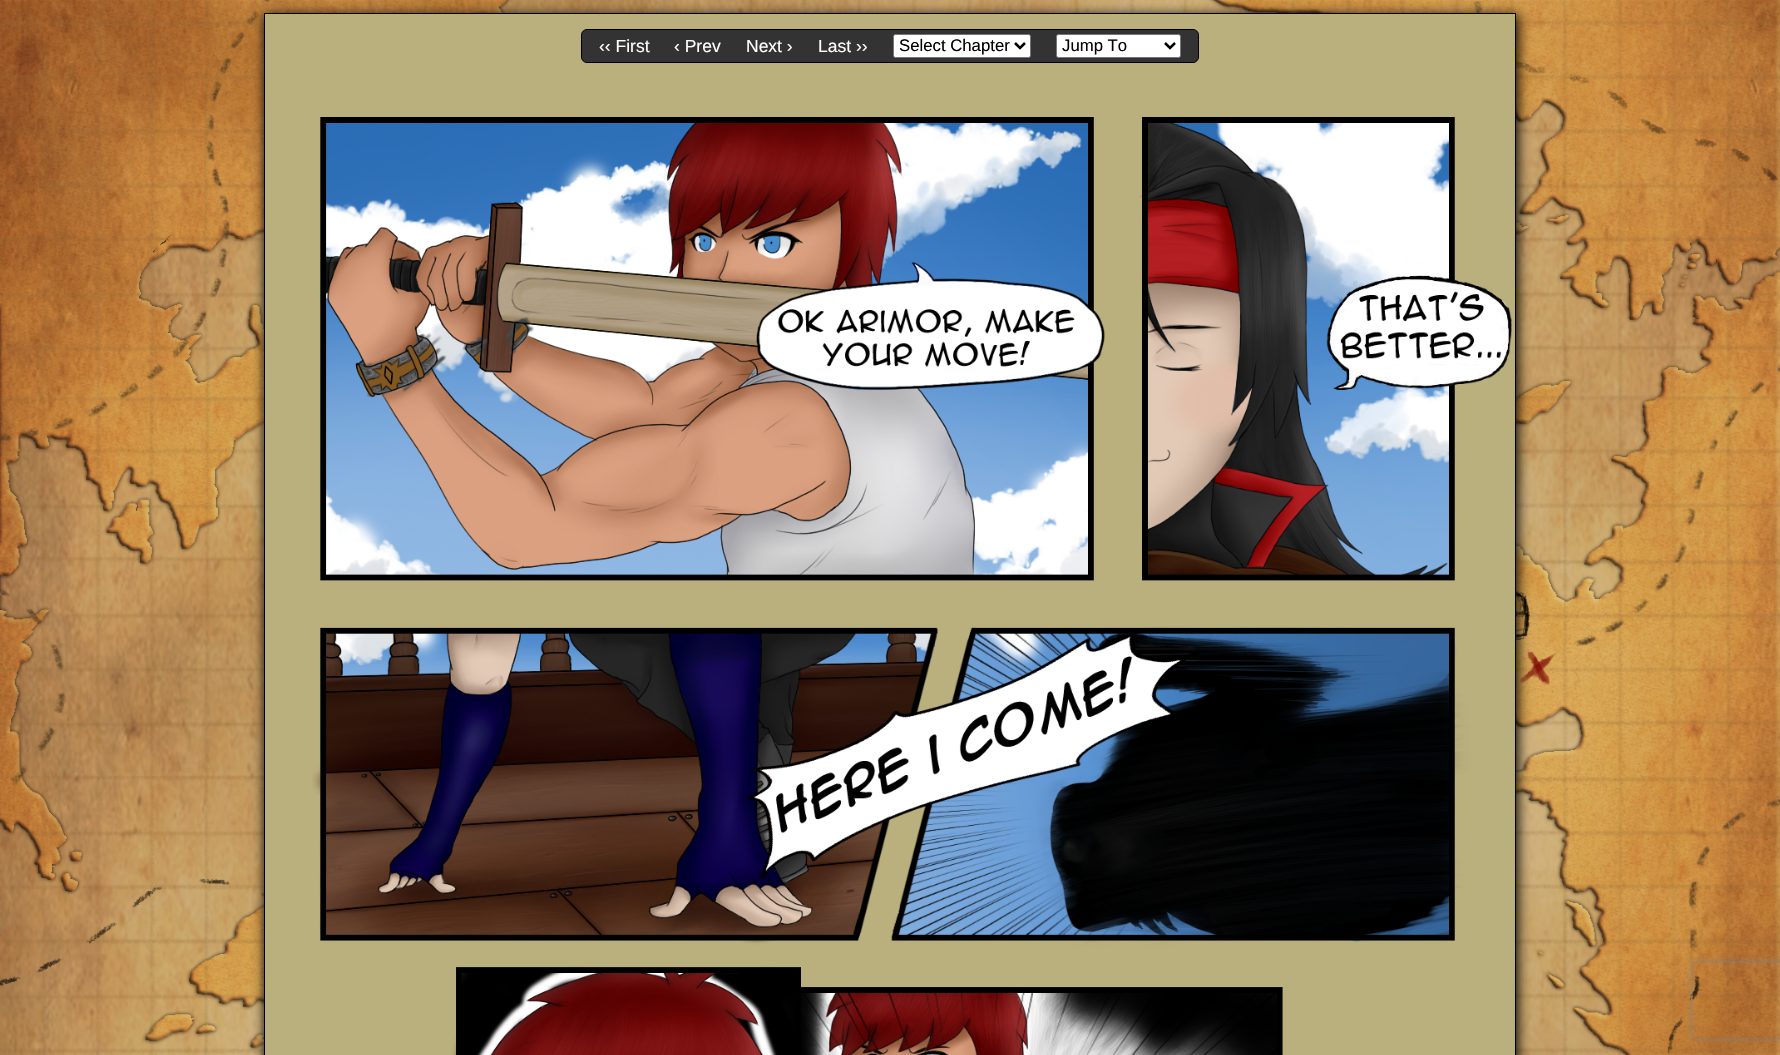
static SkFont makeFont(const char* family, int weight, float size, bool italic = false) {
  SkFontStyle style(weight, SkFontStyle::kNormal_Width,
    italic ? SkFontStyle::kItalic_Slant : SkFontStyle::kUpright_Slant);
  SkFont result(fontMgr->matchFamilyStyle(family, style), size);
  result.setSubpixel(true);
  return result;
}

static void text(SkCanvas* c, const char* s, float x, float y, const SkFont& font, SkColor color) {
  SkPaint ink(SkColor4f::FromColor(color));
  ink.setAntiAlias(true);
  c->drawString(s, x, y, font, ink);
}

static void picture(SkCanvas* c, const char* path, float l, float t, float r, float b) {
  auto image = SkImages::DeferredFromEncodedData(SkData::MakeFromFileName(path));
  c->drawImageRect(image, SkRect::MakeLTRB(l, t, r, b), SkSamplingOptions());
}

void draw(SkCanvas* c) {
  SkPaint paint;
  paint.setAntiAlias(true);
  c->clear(0xffffffff);
  picture(c, "img_01.png", 0, 0, 1780, 1055);
  paint.setColor(0xff000000);
  paint.setMaskFilter(SkMaskFilter::MakeBlur(kNormal_SkBlurStyle, 6));
  c->drawRect(SkRect::MakeLTRB(265, 15, 1518, 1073), paint);
  paint.setMaskFilter(nullptr);
  paint.setColor(0xffbab07e);
  c->drawRect(SkRect::MakeLTRB(264.5f, 13.5f, 1515.5f, 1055.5f), paint);
  paint.setStyle(SkPaint::kStroke_Style);
  paint.setStrokeWidth(1);
  paint.setColor(0xff000000);
  c->drawRect(SkRect::MakeLTRB(264.5f, 13.5f, 1515.5f, 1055.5f), paint);
  paint.setStyle(SkPaint::kFill_Style);
  paint.setColor(0xff333333);
  c->drawRoundRect(SkRect::MakeLTRB(581.5f, 29.5f, 1198.5f, 62.5f), 5.5f, 5.5f, paint);
  paint.setStyle(SkPaint::kStroke_Style);
  paint.setColor(0xff000000);
  c->drawRoundRect(SkRect::MakeLTRB(581.5f, 29.5f, 1198.5f, 62.5f), 5.5f, 5.5f, paint);
  SkFont face1 = makeFont("Liberation Sans", 400, 17.5f);
  text(c, "‹‹ First", 599, 52, face1, 0xffffffff);
  text(c, "‹ Prev", 674, 52, face1, 0xffffffff);
  text(c, "Next ›", 746, 52, face1, 0xffffffff);
  text(c, "Last ››", 818, 52, face1, 0xffffffff);
  paint.setStyle(SkPaint::kFill_Style);
  paint.setColor(0xffffffff);
  c->drawRoundRect(SkRect::MakeLTRB(893.5f, 34.5f, 1030.5f, 57.5f), 2, 2, paint);
  paint.setStyle(SkPaint::kStroke_Style);
  paint.setColor(0xff767676);
  c->drawRoundRect(SkRect::MakeLTRB(893.5f, 34.5f, 1030.5f, 57.5f), 2, 2, paint);
  paint.setStrokeWidth(2.5f);
  paint.setColor(0xff000000);
  c->drawPath(SkPathBuilder().moveTo(1015, 43).lineTo(1020, 48).lineTo(1025, 43).detach(), paint);
  SkFont face2 = makeFont("Liberation Sans", 400, 16.75f);
  text(c, "Select Chapter", 899, 51, face2, 0xff000000);
  paint.setStyle(SkPaint::kFill_Style);
  paint.setColor(0xffffffff);
  c->drawRoundRect(SkRect::MakeLTRB(1056.5f, 34.5f, 1180.5f, 57.5f), 2, 2, paint);
  paint.setStyle(SkPaint::kStroke_Style);
  paint.setStrokeWidth(1);
  paint.setColor(0xff767676);
  c->drawRoundRect(SkRect::MakeLTRB(1056.5f, 34.5f, 1180.5f, 57.5f), 2, 2, paint);
  paint.setStrokeWidth(2.5f);
  paint.setColor(0xff000000);
  c->drawPath(SkPathBuilder().moveTo(1165, 43).lineTo(1170, 48).lineTo(1175, 43).detach(), paint);
  text(c, "Jump To", 1062, 51, face2, 0xff000000);
  picture(c, "img_02.png", 312, 117, 1512, 1055);
  c->save();
  c->clipPath(SkPathBuilder(SkPathFillType::kEvenOdd).moveTo(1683, 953).lineTo(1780, 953).lineTo(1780, 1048).lineTo(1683, 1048).close().moveTo(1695.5f, 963).lineTo(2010.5f, 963).cubicTo(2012, 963, 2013, 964, 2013, 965.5f).lineTo(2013, 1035.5f).cubicTo(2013, 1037, 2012, 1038, 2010.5f, 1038).lineTo(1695.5f, 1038).cubicTo(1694, 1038, 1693, 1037, 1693, 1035.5f).lineTo(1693, 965.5f).cubicTo(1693, 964, 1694, 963, 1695.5f, 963).close().detach(), true);
  paint.setStyle(SkPaint::kFill_Style);
  paint.setColor(0xff808080);
  paint.setMaskFilter(SkMaskFilter::MakeBlur(kNormal_SkBlurStyle, 3));
  c->drawRoundRect(SkRect::MakeLTRB(1693, 963, 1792, 1038), 2.5f, 2.5f, paint);
  paint.setMaskFilter(nullptr);
  c->restore();
}
